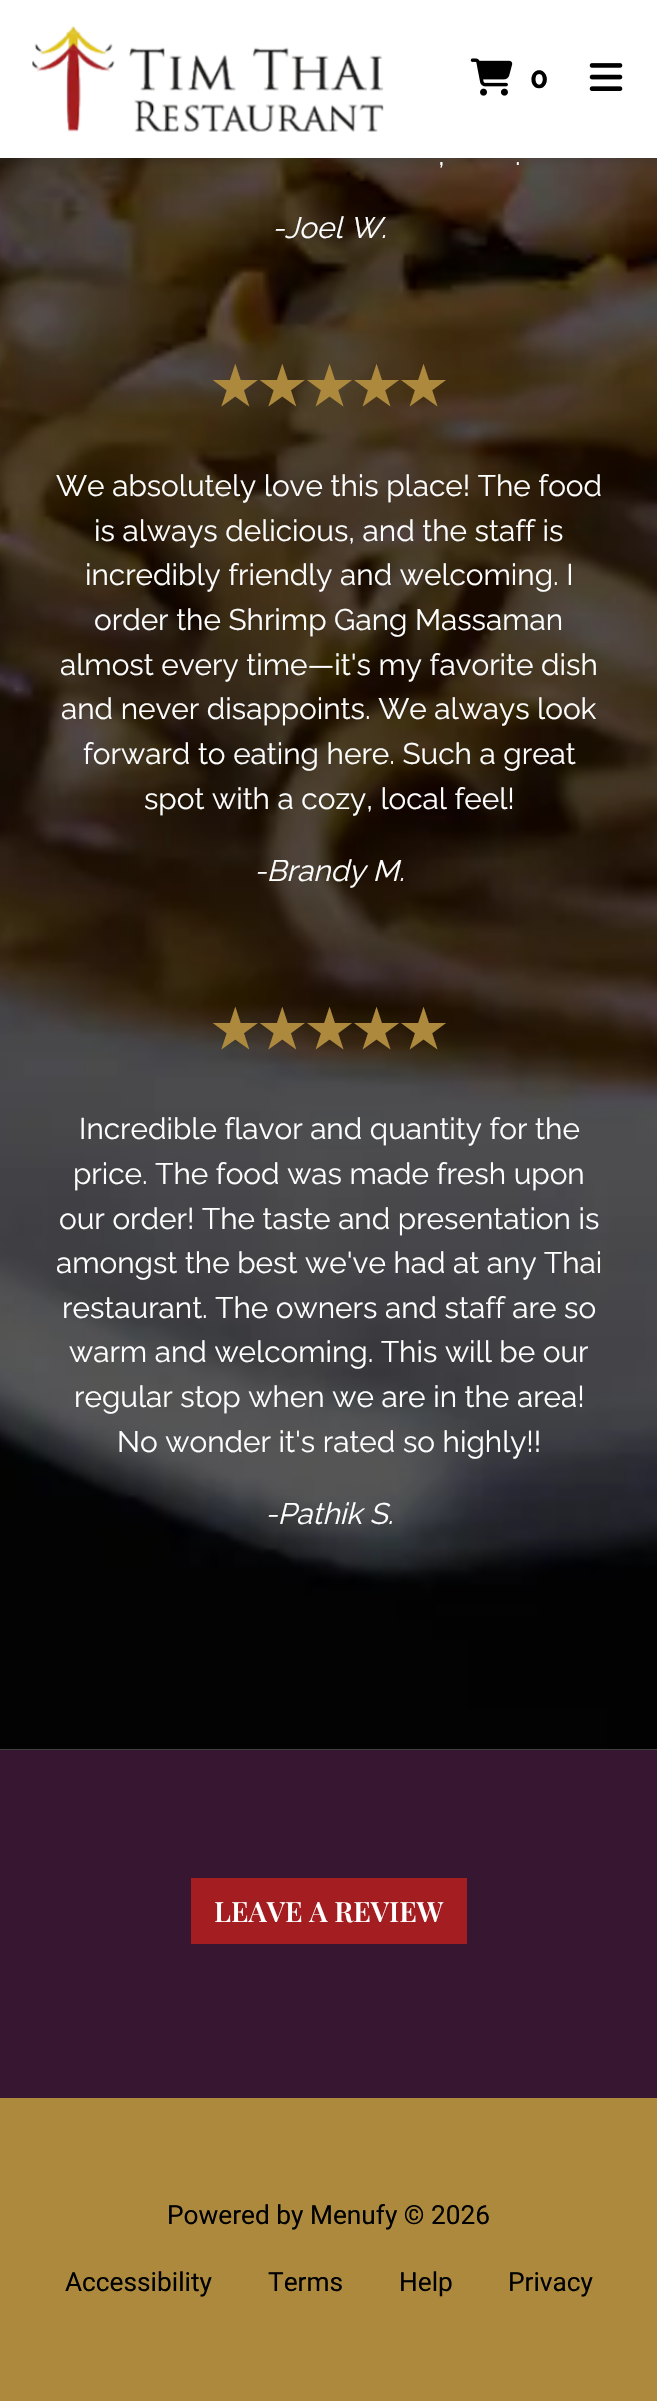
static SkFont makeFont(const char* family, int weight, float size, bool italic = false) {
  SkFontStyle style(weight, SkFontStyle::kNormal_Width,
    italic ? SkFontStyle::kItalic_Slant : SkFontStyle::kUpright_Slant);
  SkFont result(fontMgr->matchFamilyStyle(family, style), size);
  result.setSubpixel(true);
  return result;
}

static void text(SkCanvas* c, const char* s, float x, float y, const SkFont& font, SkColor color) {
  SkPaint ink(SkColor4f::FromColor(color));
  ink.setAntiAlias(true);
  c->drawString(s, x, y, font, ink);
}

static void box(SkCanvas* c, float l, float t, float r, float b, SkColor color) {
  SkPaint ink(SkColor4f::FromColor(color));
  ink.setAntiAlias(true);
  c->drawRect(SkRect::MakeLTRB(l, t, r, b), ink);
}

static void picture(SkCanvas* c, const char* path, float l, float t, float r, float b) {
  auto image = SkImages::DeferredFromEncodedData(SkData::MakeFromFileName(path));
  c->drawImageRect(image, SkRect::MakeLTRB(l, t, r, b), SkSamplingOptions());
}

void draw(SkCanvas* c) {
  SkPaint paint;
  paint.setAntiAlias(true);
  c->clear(0xffffffff);
  picture(c, "img_04.png", 0, 158, 657, 1750);
  paint.setColor(0x47202124);
  paint.setMaskFilter(SkMaskFilter::MakeBlur(kNormal_SkBlurStyle, 5));
  c->drawRect(SkRect::MakeLTRB(0, 2, 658, 159), paint);
  paint.setMaskFilter(nullptr);
  box(c, 0, 0, 657, 158, 0xffffffff);
  picture(c, "img_01.png", 32, 26, 384, 132);
  picture(c, "img_02.png", 470, 58, 513, 96);
  SkFont face1 = makeFont("Raleway", 700, 29.75f);
  text(c, "0", 530, 88, face1, 0xff000000);
  picture(c, "img_03.png", 589, 63, 623, 91);
  SkFont face2 = makeFont("Raleway", 400, 29.75f);
  text(c, ",", 438, 165, face2, 0xffffffff);
  text(c, ".", 515, 165, face2, 0xffffffff);
  SkFont face3 = makeFont("Raleway", 400, 29.75f, true);
  text(c, "-Joel W.", 272, 238, face3, 0xffffffff);
  SkFont face4 = makeFont("DejaVu Sans", 700, 52.5f);
  text(c, "★★★★★", 211, 405, face4, 0xffad893e);
  text(c, "We absolutely love this place! The food", 56, 496, face2, 0xffffffff);
  text(c, "is always delicious, and the staff is", 94, 541, face2, 0xffffffff);
  text(c, "incredibly friendly and welcoming. I", 85, 585, face2, 0xffffffff);
  text(c, "order the Shrimp Gang Massaman", 94, 630, face2, 0xffffffff);
  text(c, "almost every time—it's my favorite dish", 60, 675, face2, 0xffffffff);
  text(c, "and never disappoints. We always look", 61, 719, face2, 0xffffffff);
  text(c, "forward to eating here. Such a great", 83, 764, face2, 0xffffffff);
  text(c, "spot with a cozy, local feel!", 144, 809, face2, 0xffffffff);
  text(c, "-Brandy M.", 254, 881, face3, 0xffffffff);
  text(c, "★★★★★", 211, 1048, face4, 0xffad893e);
  text(c, "Incredible flavor and quantity for the", 79, 1139, face2, 0xffffffff);
  text(c, "price. The food was made fresh upon", 73, 1184, face2, 0xffffffff);
  text(c, "our order! The taste and presentation is", 59, 1229, face2, 0xffffffff);
  text(c, "amongst the best we've had at any Thai", 56, 1273, face2, 0xffffffff);
  text(c, "restaurant. The owners and staff are so", 62, 1318, face2, 0xffffffff);
  text(c, "warm and welcoming. This will be our", 69, 1362, face2, 0xffffffff);
  text(c, "regular stop when we are in the area!", 74, 1407, face2, 0xffffffff);
  text(c, "No wonder it's rated so highly!!", 117, 1452, face2, 0xffffffff);
  text(c, "-Pathik S.", 265, 1524, face3, 0xffffffff);
  box(c, 0, 1750, 657, 2098, 0xff371631);
  box(c, 191, 1878, 467, 1944, 0xffa41d21);
  SkFont face5 = makeFont("Playfair Display", 600, 28);
  text(c, "LEAVE A REVIEW", 214, 1922, face5, 0xffffffff);
  box(c, 0, 2098, 657, 2401, 0xffad893e);
  SkFont face6 = makeFont("Roboto", 400, 26.25f);
  text(c, "Powered by Menufy © 2026", 167, 2224, face6, 0xff000000);
  text(c, "Accessibility", 65, 2291, face6, 0xff000000);
  text(c, "Terms", 268, 2291, face6, 0xff000000);
  text(c, "Help", 399, 2291, face6, 0xff000000);
  text(c, "Privacy", 508, 2291, face6, 0xff000000);
}
